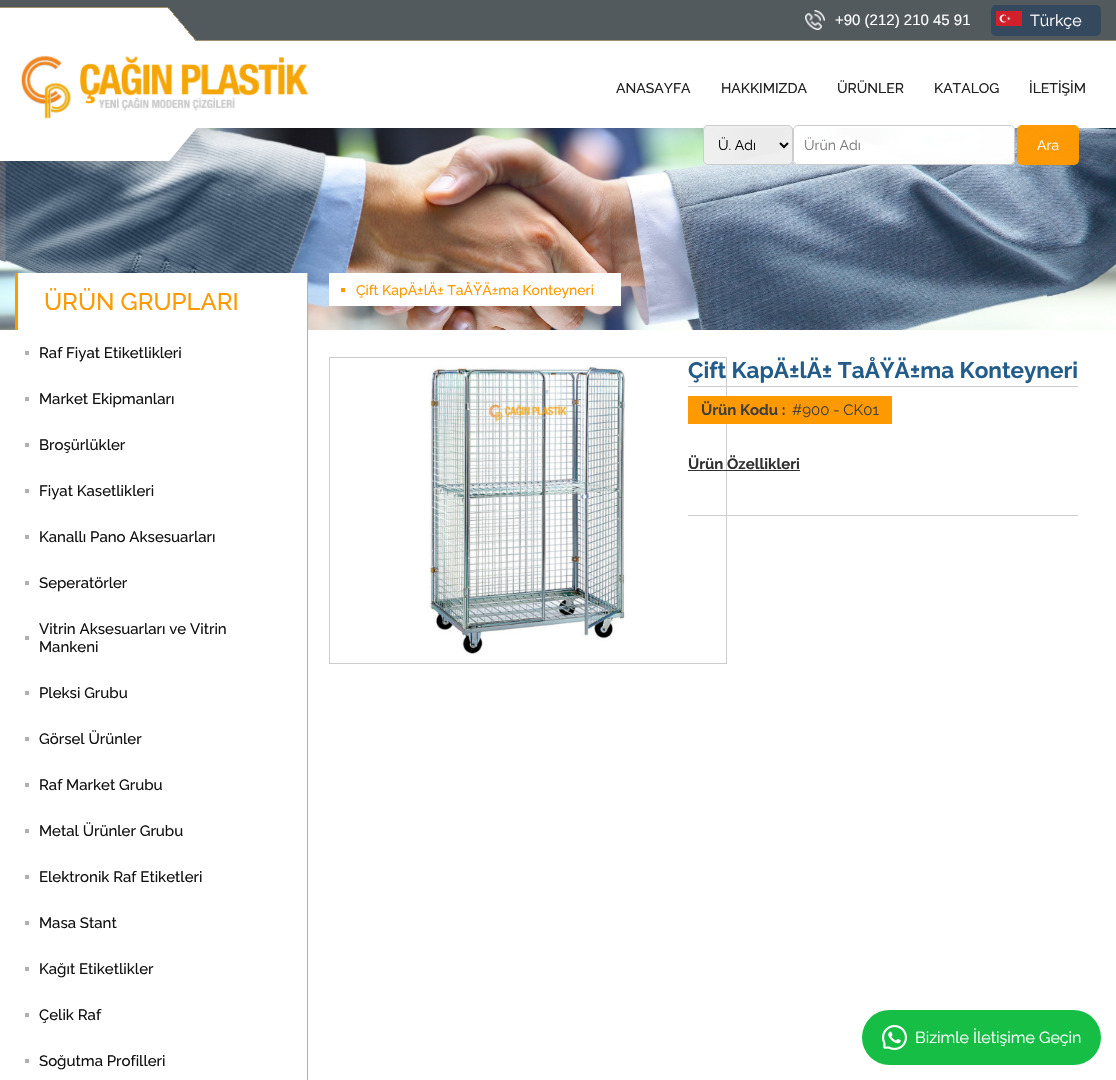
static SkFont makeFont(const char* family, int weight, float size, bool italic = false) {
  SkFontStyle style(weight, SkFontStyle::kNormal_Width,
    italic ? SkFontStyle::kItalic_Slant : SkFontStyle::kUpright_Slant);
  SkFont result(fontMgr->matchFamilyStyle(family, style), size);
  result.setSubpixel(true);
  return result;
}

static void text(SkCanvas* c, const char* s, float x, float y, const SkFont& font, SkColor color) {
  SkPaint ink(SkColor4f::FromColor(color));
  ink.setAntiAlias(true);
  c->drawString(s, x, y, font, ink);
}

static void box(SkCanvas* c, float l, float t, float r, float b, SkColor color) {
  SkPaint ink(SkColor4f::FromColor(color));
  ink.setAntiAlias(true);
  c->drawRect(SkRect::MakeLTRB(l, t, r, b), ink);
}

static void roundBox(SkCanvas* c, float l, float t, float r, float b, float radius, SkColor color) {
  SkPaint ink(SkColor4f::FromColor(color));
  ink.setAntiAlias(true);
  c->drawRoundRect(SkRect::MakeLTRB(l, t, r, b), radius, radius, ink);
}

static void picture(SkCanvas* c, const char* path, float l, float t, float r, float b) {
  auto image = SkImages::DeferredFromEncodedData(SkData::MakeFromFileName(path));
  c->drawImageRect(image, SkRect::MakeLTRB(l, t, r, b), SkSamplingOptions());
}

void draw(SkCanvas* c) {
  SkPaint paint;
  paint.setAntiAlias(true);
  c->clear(0xffffffff);
  picture(c, "img_05.png", 0, 128, 1116, 330);
  picture(c, "img_01.png", 0, 0, 1116, 171);
  picture(c, "img_02.png", 805, 10, 825, 30);
  SkFont face1 = makeFont("Liberation Sans", 400, 15);
  text(c, "+90 (212) 210 45 91", 835, 25, face1, 0xffffffff);
  roundBox(c, 991, 5, 1101, 36, 5, 0xff34495e);
  picture(c, "img_03.png", 996, 11, 1022, 26);
  SkFont face2 = makeFont("Raleway", 400, 16);
  text(c, "Türkçe", 1030, 26, face2, 0xffffffff);
  picture(c, "img_04.png", 21, 55, 309, 119);
  SkFont face3 = makeFont("Raleway", 500, 14);
  text(c, "ANASAYFA", 616, 93, face3, 0xff212121);
  text(c, "HAKKIMIZDA", 721, 93, face3, 0xff212121);
  text(c, "ÜRÜNLER", 837, 93, face3, 0xff212121);
  text(c, "KATALOG", 934, 93, face3, 0xff212121);
  text(c, "İLETİŞİM", 1029, 93, face3, 0xff212121);
  roundBox(c, 703, 125, 793, 165, 5, 0xfaefefef);
  paint.setStyle(SkPaint::kStroke_Style);
  paint.setStrokeWidth(1);
  paint.setColor(0xfacccccc);
  c->drawRoundRect(SkRect::MakeLTRB(703.5f, 125.5f, 792.5f, 164.5f), 4.5f, 4.5f, paint);
  paint.setStrokeWidth(2);
  paint.setColor(0xff050505);
  c->drawPath(SkPathBuilder().moveTo(780, 143).lineTo(784, 147).lineTo(788, 143).detach(), paint);
  SkFont face4 = makeFont("Raleway", 400, 14);
  text(c, "Ü. Adı", 718, 150, face4, 0xff050505);
  roundBox(c, 793, 125, 1015, 165, 5, 0xfaffffff);
  paint.setStrokeWidth(1);
  paint.setColor(0xfacccccc);
  c->drawRoundRect(SkRect::MakeLTRB(793.5f, 125.5f, 1014.5f, 164.5f), 4.5f, 4.5f, paint);
  text(c, "Ürün Adı", 804, 150, face4, 0xff787878);
  roundBox(c, 1017, 125, 1079, 165, 5, 0xfaff9900);
  text(c, "Ara", 1037, 150, face4, 0xffffffff);
  box(c, 307, 273, 308, 1080, 0xffb0b0b0);
  box(c, 18, 273, 307, 330, 0xffffffff);
  box(c, 15, 273, 18, 330, 0xffff9900);
  SkFont face5 = makeFont("Raleway", 500, 24);
  text(c, "ÜRÜN GRUPLARI", 44, 310, face5, 0xffff9900);
  box(c, 25, 351, 29, 355, 0xffb0b0b0);
  SkFont face6 = makeFont("Raleway", 500, 15);
  text(c, "Raf Fiyat Etiketlikleri", 39, 358, face6, 0xff121212);
  box(c, 25, 397, 29, 401, 0xffb0b0b0);
  text(c, "Market Ekipmanları", 39, 404, face6, 0xff121212);
  box(c, 25, 443, 29, 447, 0xffb0b0b0);
  text(c, "Broşürlükler", 39, 450, face6, 0xff121212);
  box(c, 25, 489, 29, 493, 0xffb0b0b0);
  text(c, "Fiyat Kasetlikleri", 39, 496, face6, 0xff121212);
  box(c, 25, 535, 29, 539, 0xffb0b0b0);
  text(c, "Kanallı Pano Aksesuarları", 39, 542, face6, 0xff121212);
  box(c, 25, 581, 29, 585, 0xffb0b0b0);
  text(c, "Seperatörler", 39, 588, face6, 0xff121212);
  box(c, 25, 636, 29, 640, 0xffb0b0b0);
  text(c, "Vitrin Aksesuarları ve Vitrin", 39, 634, face6, 0xff121212);
  text(c, "Mankeni", 39, 652, face6, 0xff121212);
  box(c, 25, 691, 29, 695, 0xffb0b0b0);
  text(c, "Pleksi Grubu", 39, 698, face6, 0xff121212);
  box(c, 25, 737, 29, 741, 0xffb0b0b0);
  text(c, "Görsel Ürünler", 39, 744, face6, 0xff121212);
  box(c, 25, 783, 29, 787, 0xffb0b0b0);
  text(c, "Raf Market Grubu", 39, 790, face6, 0xff121212);
  box(c, 25, 829, 29, 833, 0xffb0b0b0);
  text(c, "Metal Ürünler Grubu", 39, 836, face6, 0xff121212);
  box(c, 25, 875, 29, 879, 0xffb0b0b0);
  text(c, "Elektronik Raf Etiketleri", 39, 882, face6, 0xff121212);
  box(c, 25, 921, 29, 925, 0xffb0b0b0);
  text(c, "Masa Stant", 39, 928, face6, 0xff121212);
  box(c, 25, 967, 29, 971, 0xffb0b0b0);
  text(c, "Kağıt Etiketlikler", 39, 974, face6, 0xff121212);
  box(c, 25, 1013, 29, 1017, 0xffb0b0b0);
  text(c, "Çelik Raf", 39, 1020, face6, 0xff121212);
  box(c, 25, 1059, 29, 1063, 0xffb0b0b0);
  text(c, "Soğutma Profilleri", 39, 1066, face6, 0xff121212);
  box(c, 329, 273, 621, 306, 0xffffffff);
  box(c, 341, 288, 345, 292, 0xffff9900);
  text(c, "Çift KapÄ±lÄ± TaÅŸÄ±ma Konteyneri", 356, 295, face3, 0xffff9900);
  paint.setColor(0xffcccccc);
  c->drawRect(SkRect::MakeLTRB(329.5f, 357.5f, 726.5f, 663.5f), paint);
  picture(c, "img_06.png", 429, 365, 626, 655);
  SkFont face7 = makeFont("Raleway", 700, 22.5f);
  text(c, "Çift KapÄ±lÄ± TaÅŸÄ±ma Konteyneri", 688, 378, face7, 0xff225c8a);
  box(c, 688, 386, 1078, 387, 0xffcccccc);
  box(c, 688, 396, 892, 424, 0xffff9900);
  SkFont face8 = makeFont("Raleway", 700, 15);
  text(c, "Ürün Kodu :", 701, 415, face8, 0xff3e3e3e);
  SkFont face9 = makeFont("Raleway", 400, 15);
  text(c, "#900 - CK01", 792, 415, face9, 0xff3e3e3e);
  text(c, "Ürün Özellikleri", 688, 469, face8, 0xff303030);
  box(c, 688, 470, 800, 471, 0xff303030);
  box(c, 688, 515, 1078, 516, 0xffcccccc);
  roundBox(c, 862, 1010, 1101, 1065, 27.5f, 0xff16be45);
  picture(c, "img_07.png", 882, 1025, 907, 1050);
  text(c, "Bizimle İletişime Geçin", 915, 1043, face2, 0xffffffff);
}
